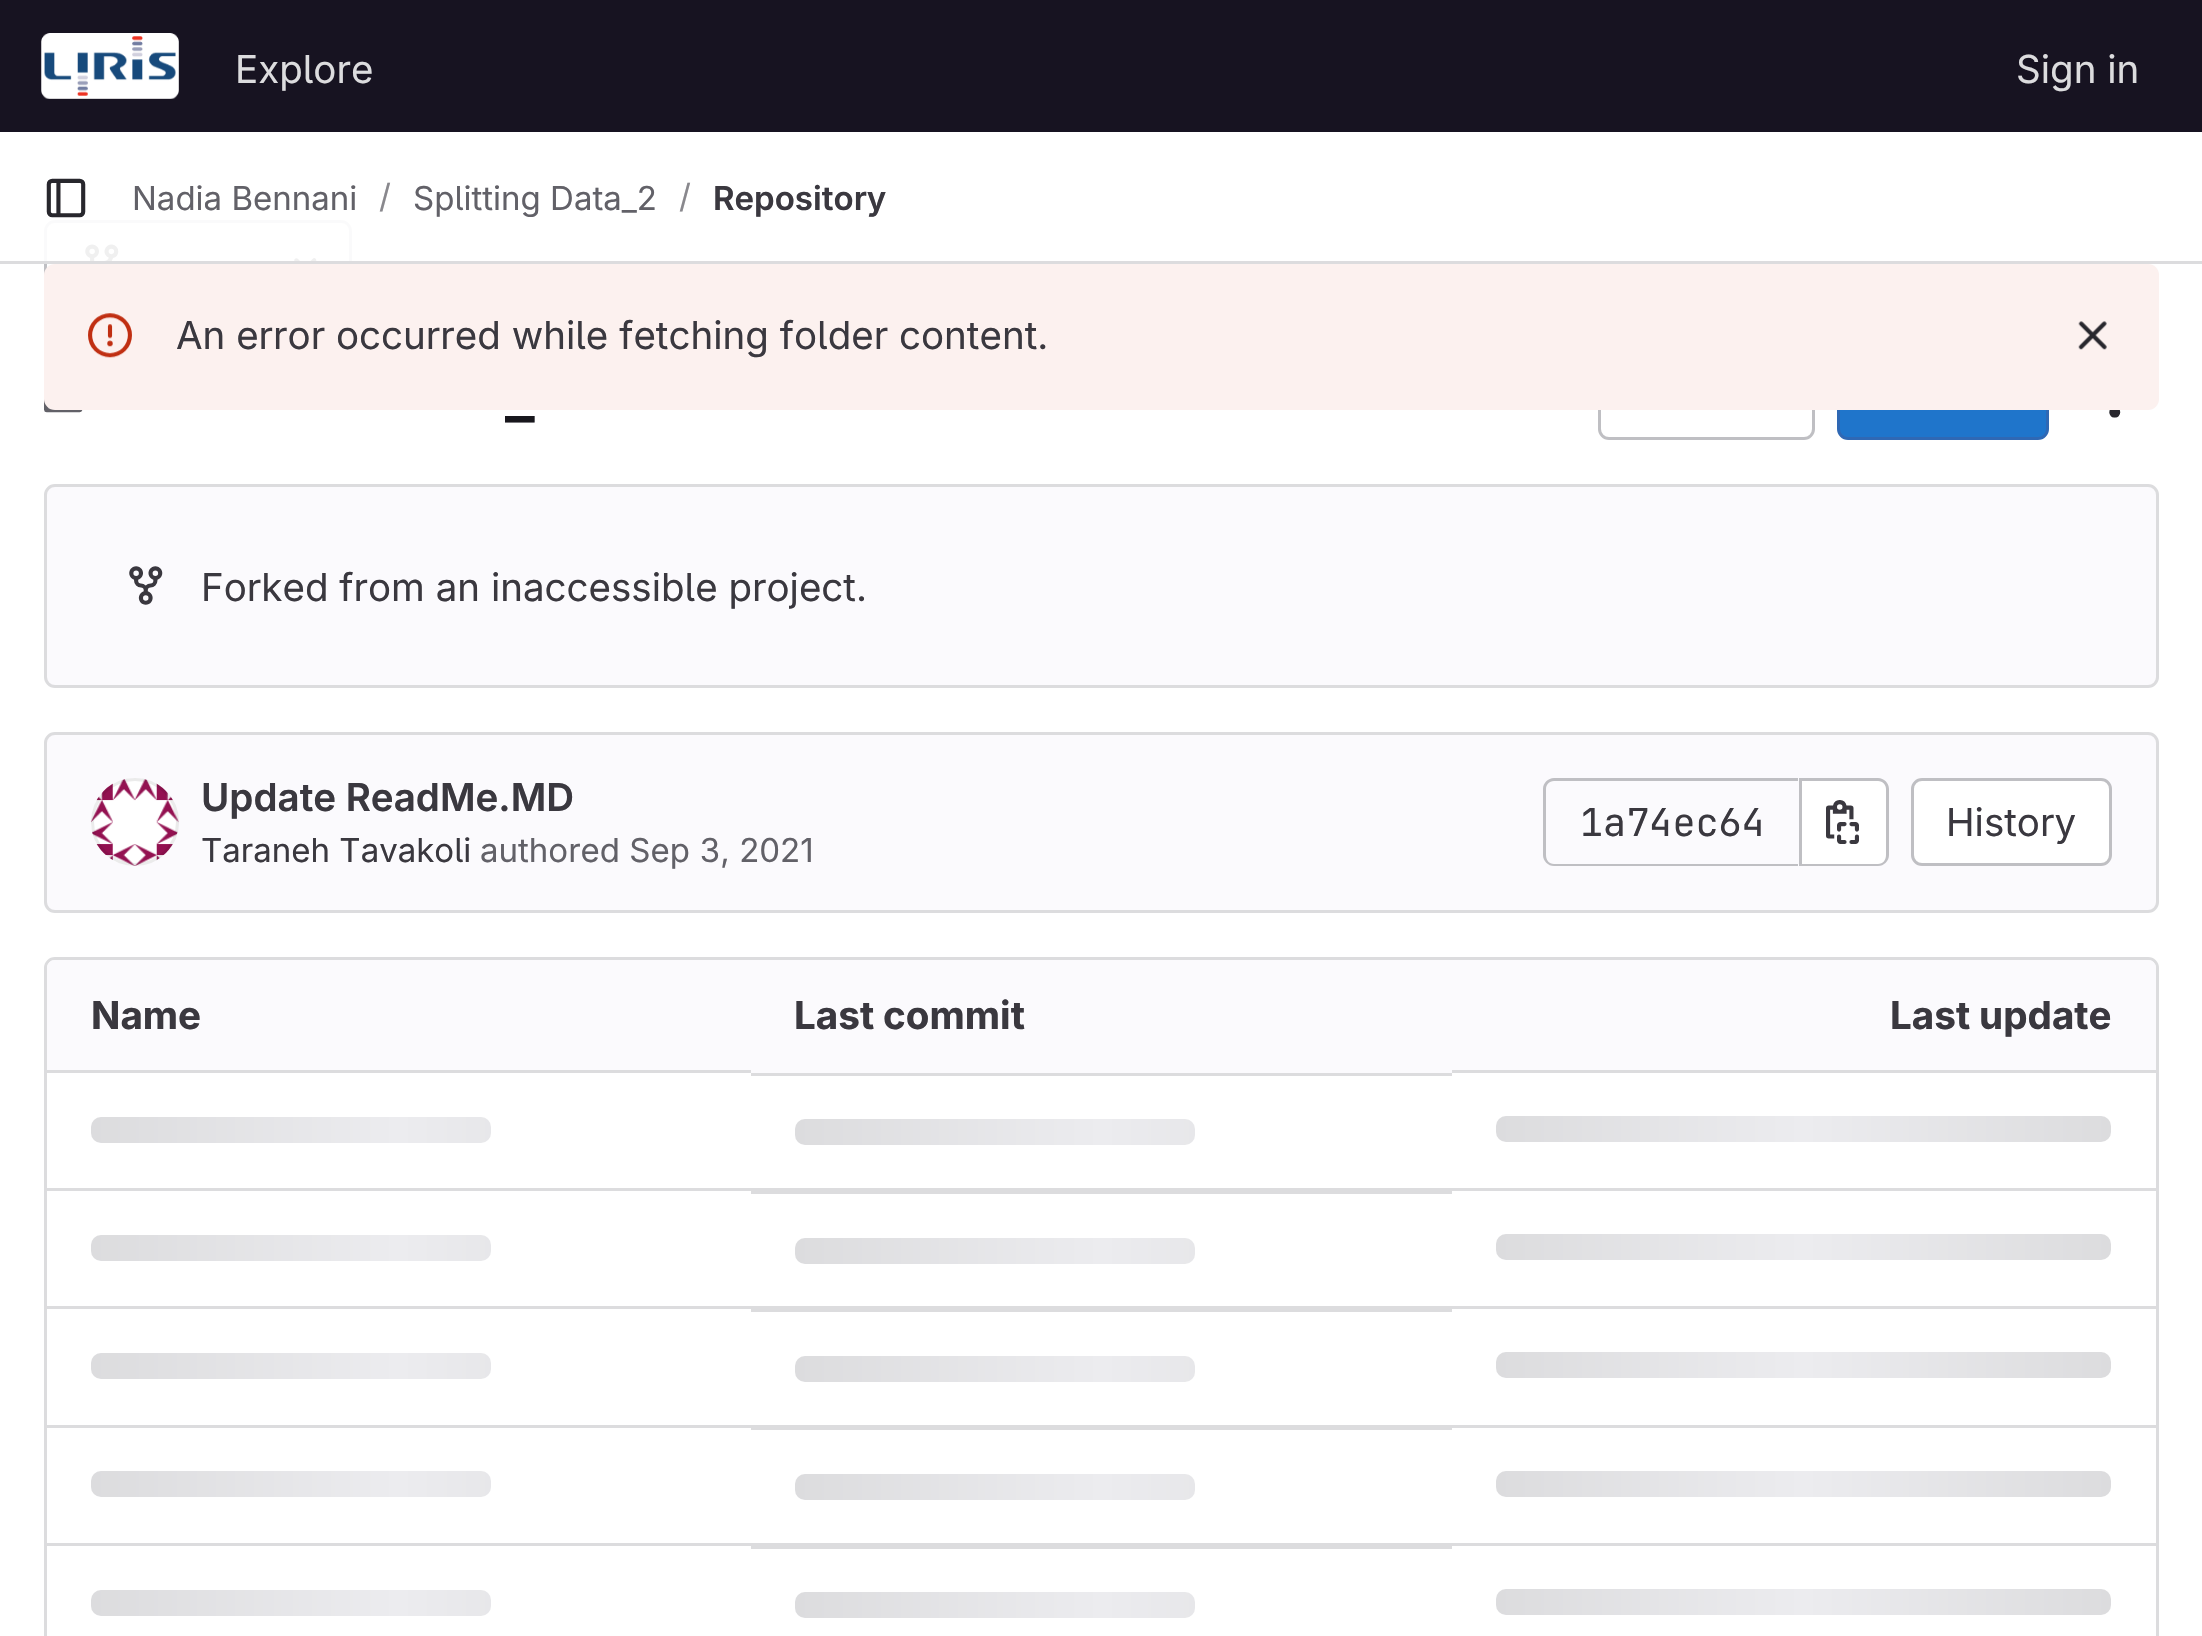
static SkFont makeFont(const char* family, int weight, float size, bool italic = false) {
  SkFontStyle style(weight, SkFontStyle::kNormal_Width,
    italic ? SkFontStyle::kItalic_Slant : SkFontStyle::kUpright_Slant);
  SkFont result(fontMgr->matchFamilyStyle(family, style), size);
  result.setSubpixel(true);
  return result;
}

static void text(SkCanvas* c, const char* s, float x, float y, const SkFont& font, SkColor color) {
  SkPaint ink(SkColor4f::FromColor(color));
  ink.setAntiAlias(true);
  c->drawString(s, x, y, font, ink);
}

static void box(SkCanvas* c, float l, float t, float r, float b, SkColor color) {
  SkPaint ink(SkColor4f::FromColor(color));
  ink.setAntiAlias(true);
  c->drawRect(SkRect::MakeLTRB(l, t, r, b), ink);
}

static void roundBox(SkCanvas* c, float l, float t, float r, float b, float radius, SkColor color) {
  SkPaint ink(SkColor4f::FromColor(color));
  ink.setAntiAlias(true);
  c->drawRoundRect(SkRect::MakeLTRB(l, t, r, b), radius, radius, ink);
}

static void picture(SkCanvas* c, const char* path, float l, float t, float r, float b) {
  auto image = SkImages::DeferredFromEncodedData(SkData::MakeFromFileName(path));
  c->drawImageRect(image, SkRect::MakeLTRB(l, t, r, b), SkSamplingOptions());
}

void draw(SkCanvas* c) {
  SkPaint paint;
  paint.setAntiAlias(true);
  c->clear(0xffffffff);
  box(c, 0, 0, 2202, 132, 0xff171321);
  picture(c, "img_01.png", 41, 33, 179, 99);
  SkFont face1 = makeFont("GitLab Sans", 400, 38.5f);
  text(c, "Explore", 235, 83, face1, 0xffdcdcde);
  text(c, "Sign in", 2016, 83, face1, 0xffdcdcde);
  paint.setStyle(SkPaint::kStroke_Style);
  paint.setStrokeWidth(3);
  paint.setColor(0xffbfbfc3);
  c->drawRoundRect(SkRect::MakeLTRB(45.5f, 221.5f, 350.5f, 306.5f), 9.5f, 9.5f, paint);
  picture(c, "img_05.png", 85, 244, 119, 261);
  picture(c, "img_06.png", 294, 258, 317, 261);
  box(c, 44, 220, 352, 261, 0xebffffff);
  box(c, 0, 261, 2202, 264, 0xffdcdcde);
  picture(c, "img_02.png", 46, 178, 86, 218);
  SkFont face2 = makeFont("GitLab Sans", 400, 33);
  text(c, "Nadia Bennani", 132, 210, face2, 0xff626168);
  text(c, "/", 379, 208, face2, 0xff89888d);
  text(c, "Splitting Data_2", 413, 210, face2, 0xff626168);
  text(c, "/", 679, 208, face2, 0xff89888d);
  SkFont face3 = makeFont("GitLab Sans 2", 600, 33);
  text(c, "Repository", 713, 210, face3, 0xff3a383f);
  picture(c, "img_07.png", 44, 399, 83, 413);
  c->drawRoundRect(SkRect::MakeLTRB(1599.5f, 353.5f, 1813.5f, 438.5f), 9.5f, 9.5f, paint);
  paint.setStyle(SkPaint::kFill_Style);
  paint.setColor(0xff1f75cb);
  c->drawRoundRect(SkRect::MakeLTRB(1838.5f, 353.5f, 2047.5f, 438.5f), 9.5f, 9.5f, paint);
  paint.setStyle(SkPaint::kStroke_Style);
  paint.setColor(0xff2f68b4);
  c->drawRoundRect(SkRect::MakeLTRB(1838.5f, 353.5f, 2047.5f, 438.5f), 9.5f, 9.5f, paint);
  roundBox(c, 44, 264, 2159, 410, 11, 0xfffcf1ef);
  picture(c, "img_03.png", 88, 313, 132, 358);
  text(c, "An error occurred while fetching folder content.", 176, 349, face1, 0xff3a383f);
  picture(c, "img_04.png", 2078, 321, 2107, 350);
  SkFont face4 = makeFont("GitLab Sans", 600, 63);
  text(c, "_", 505, 416, face4, 0xff18171d);
  picture(c, "img_08.png", 2109, 410, 2121, 418);
  paint.setStyle(SkPaint::kFill_Style);
  paint.setColor(0xfffbfafd);
  c->drawRoundRect(SkRect::MakeLTRB(45.5f, 485.5f, 2157.5f, 686.5f), 9.5f, 9.5f, paint);
  paint.setStyle(SkPaint::kStroke_Style);
  paint.setColor(0xffdcdcde);
  c->drawRoundRect(SkRect::MakeLTRB(45.5f, 485.5f, 2157.5f, 686.5f), 9.5f, 9.5f, paint);
  picture(c, "img_09.png", 129, 566, 163, 605);
  text(c, "Forked from an inaccessible project.", 201, 601, face1, 0xff3a383f);
  paint.setStyle(SkPaint::kFill_Style);
  paint.setColor(0xfffbfafd);
  c->drawRoundRect(SkRect::MakeLTRB(45.5f, 733.5f, 2157.5f, 911.5f), 9.5f, 9.5f, paint);
  paint.setStyle(SkPaint::kStroke_Style);
  paint.setColor(0xffdcdcde);
  c->drawRoundRect(SkRect::MakeLTRB(45.5f, 733.5f, 2157.5f, 911.5f), 9.5f, 9.5f, paint);
  picture(c, "img_10.png", 90, 778, 179, 866);
  paint.setColor(0x14050506);
  c->drawCircle(135, 822, 42.5f, paint);
  SkFont face5 = makeFont("GitLab Sans 2", 600, 38.5f);
  text(c, "Update ReadMe.MD", 201, 811, face5, 0xff3a383f);
  text(c, "Taraneh Tavakoli", 201, 862, face2, 0xff3a383f);
  text(c, "authored Sep 3, 2021", 480, 862, face2, 0xff626168);
  paint.setStyle(SkPaint::kFill_Style);
  paint.setColor(0xffbfbfc3);
  c->drawPath(SkPathBuilder(SkPathFillType::kEvenOdd).moveTo(1554, 778).lineTo(1798, 778).lineTo(1798, 866).lineTo(1554, 866).cubicTo(1548, 866, 1543, 861, 1543, 855).lineTo(1543, 789).cubicTo(1543, 783, 1548, 778, 1554, 778).close().moveTo(1554, 781).lineTo(1798, 781).lineTo(1798, 864).lineTo(1554, 864).cubicTo(1549, 864, 1546, 860, 1546, 855).lineTo(1546, 789).cubicTo(1546, 785, 1549, 781, 1554, 781).close().detach(), paint);
  SkFont face6 = makeFont("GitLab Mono", 400, 38.5f);
  text(c, "1a74ec64", 1580, 836, face6, 0xff3a383f);
  paint.setColor(0xffffffff);
  c->drawPath(SkPathBuilder().moveTo(1801, 781).lineTo(1879, 781).cubicTo(1883.5f, 781, 1887, 784.5f, 1887, 789).lineTo(1887, 856).cubicTo(1887, 860.5f, 1883.5f, 864, 1879, 864).lineTo(1801, 864).close().detach(), paint);
  paint.setColor(0xffbfbfc3);
  c->drawPath(SkPathBuilder(SkPathFillType::kEvenOdd).moveTo(1801, 778).lineTo(1878, 778).cubicTo(1884, 778, 1889, 783, 1889, 789).lineTo(1889, 855).cubicTo(1889, 861, 1884, 866, 1878, 866).lineTo(1801, 866).close().moveTo(1801, 781).lineTo(1878, 781).cubicTo(1883, 781, 1886, 785, 1886, 789).lineTo(1886, 855).cubicTo(1886, 860, 1883, 864, 1878, 864).lineTo(1801, 864).close().detach(), paint);
  box(c, 1799, 778, 1802, 866, 0xffbfbfc3);
  picture(c, "img_11.png", 1826, 800, 1859, 844);
  paint.setColor(0xffffffff);
  c->drawRoundRect(SkRect::MakeLTRB(1912.5f, 779.5f, 2110.5f, 864.5f), 9.5f, 9.5f, paint);
  paint.setStyle(SkPaint::kStroke_Style);
  paint.setColor(0xffbfbfc3);
  c->drawRoundRect(SkRect::MakeLTRB(1912.5f, 779.5f, 2110.5f, 864.5f), 9.5f, 9.5f, paint);
  text(c, "History", 1946, 836, face1, 0xff3a383f);
  paint.setColor(0xffdcdcde);
  c->drawRoundRect(SkRect::MakeLTRB(45.5f, 958.5f, 2157.5f, 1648.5f), 9.5f, 9.5f, paint);
  paint.setStyle(SkPaint::kFill_Style);
  paint.setColor(0xfffbfafd);
  c->drawPath(SkPathBuilder().moveTo(55, 960).lineTo(751, 960).lineTo(751, 1073).lineTo(47, 1073).lineTo(47, 968).cubicTo(47, 963.5f, 50.5f, 960, 55, 960).close().detach(), paint);
  SkFont face7 = makeFont("GitLab Sans", 700, 38.5f);
  text(c, "Name", 91, 1029, face7, 0xff3a383f);
  box(c, 751, 960, 1452, 1073, 0xfffbfafd);
  text(c, "Last commit", 794, 1029, face7, 0xff3a383f);
  c->drawPath(SkPathBuilder().moveTo(1452, 960).lineTo(2148, 960).cubicTo(2152.5f, 960, 2156, 963.5f, 2156, 968).lineTo(2156, 1073).lineTo(1452, 1073).close().detach(), paint);
  text(c, "Last update", 1890, 1029, face7, 0xff3a383f);
  box(c, 47, 1188, 2156, 1191, 0xffdcdcde);
  box(c, 47, 1070, 751, 1073, 0xffdcdcde);
  {
    const SkColor colors[] = {0xffdcdcde, 0xffececef, 0xffdcdcde};
    const float stops[] = {0, 0.5f, 1};
    const SkPoint ends[] = {{91, 1117}, {706, 1117}};
    paint.setShader(SkGradientShader::MakeLinear(ends, colors, stops, 3, SkTileMode::kClamp));
    paint.setAlpha(255);
  }
  c->drawRoundRect(SkRect::MakeLTRB(91, 1117, 491, 1143), 10, 10, paint);
  box(c, 751, 1073, 1452, 1076, 0xffdcdcde);
  {
    const SkColor colors[] = {0xffdcdcde, 0xffececef, 0xffdcdcde};
    const float stops[] = {0, 0.5f, 1};
    const SkPoint ends[] = {{795, 1119}, {1410, 1119}};
    paint.setShader(SkGradientShader::MakeLinear(ends, colors, stops, 3, SkTileMode::kClamp));
    paint.setAlpha(255);
  }
  c->drawRoundRect(SkRect::MakeLTRB(795, 1119, 1195, 1145), 10, 10, paint);
  box(c, 1452, 1070, 2156, 1073, 0xffdcdcde);
  {
    const SkColor colors[] = {0xffdcdcde, 0xffececef, 0xffdcdcde};
    const float stops[] = {0, 0.5f, 1};
    const SkPoint ends[] = {{1496, 1116}, {2111, 1116}};
    paint.setShader(SkGradientShader::MakeLinear(ends, colors, stops, 3, SkTileMode::kClamp));
    paint.setAlpha(255);
  }
  c->drawRoundRect(SkRect::MakeLTRB(1496, 1116, 2111, 1142), 10, 10, paint);
  box(c, 47, 1306, 2156, 1309, 0xffdcdcde);
  {
    const SkColor colors[] = {0xffdcdcde, 0xffececef, 0xffdcdcde};
    const float stops[] = {0, 0.5f, 1};
    const SkPoint ends[] = {{91, 1235}, {706, 1235}};
    paint.setShader(SkGradientShader::MakeLinear(ends, colors, stops, 3, SkTileMode::kClamp));
    paint.setAlpha(255);
  }
  c->drawRoundRect(SkRect::MakeLTRB(91, 1235, 491, 1261), 10, 10, paint);
  box(c, 751, 1191, 1452, 1194, 0xffdcdcde);
  {
    const SkColor colors[] = {0xffdcdcde, 0xffececef, 0xffdcdcde};
    const float stops[] = {0, 0.5f, 1};
    const SkPoint ends[] = {{795, 1238}, {1410, 1238}};
    paint.setShader(SkGradientShader::MakeLinear(ends, colors, stops, 3, SkTileMode::kClamp));
    paint.setAlpha(255);
  }
  c->drawRoundRect(SkRect::MakeLTRB(795, 1238, 1195, 1264), 10, 10, paint);
  {
    const SkColor colors[] = {0xffdcdcde, 0xffececef, 0xffdcdcde};
    const float stops[] = {0, 0.5f, 1};
    const SkPoint ends[] = {{1496, 1234}, {2111, 1234}};
    paint.setShader(SkGradientShader::MakeLinear(ends, colors, stops, 3, SkTileMode::kClamp));
    paint.setAlpha(255);
  }
  c->drawRoundRect(SkRect::MakeLTRB(1496, 1234, 2111, 1260), 10, 10, paint);
  box(c, 47, 1425, 2156, 1428, 0xffdcdcde);
  {
    const SkColor colors[] = {0xffdcdcde, 0xffececef, 0xffdcdcde};
    const float stops[] = {0, 0.5f, 1};
    const SkPoint ends[] = {{91, 1353}, {706, 1353}};
    paint.setShader(SkGradientShader::MakeLinear(ends, colors, stops, 3, SkTileMode::kClamp));
    paint.setAlpha(255);
  }
  c->drawRoundRect(SkRect::MakeLTRB(91, 1353, 491, 1379), 10, 10, paint);
  box(c, 751, 1309, 1452, 1312, 0xffdcdcde);
  {
    const SkColor colors[] = {0xffdcdcde, 0xffececef, 0xffdcdcde};
    const float stops[] = {0, 0.5f, 1};
    const SkPoint ends[] = {{795, 1356}, {1410, 1356}};
    paint.setShader(SkGradientShader::MakeLinear(ends, colors, stops, 3, SkTileMode::kClamp));
    paint.setAlpha(255);
  }
  c->drawRoundRect(SkRect::MakeLTRB(795, 1356, 1195, 1382), 10, 10, paint);
  {
    const SkColor colors[] = {0xffdcdcde, 0xffececef, 0xffdcdcde};
    const float stops[] = {0, 0.5f, 1};
    const SkPoint ends[] = {{1496, 1352}, {2111, 1352}};
    paint.setShader(SkGradientShader::MakeLinear(ends, colors, stops, 3, SkTileMode::kClamp));
    paint.setAlpha(255);
  }
  c->drawRoundRect(SkRect::MakeLTRB(1496, 1352, 2111, 1378), 10, 10, paint);
  box(c, 47, 1543, 2156, 1546, 0xffdcdcde);
  {
    const SkColor colors[] = {0xffdcdcde, 0xffececef, 0xffdcdcde};
    const float stops[] = {0, 0.5f, 1};
    const SkPoint ends[] = {{91, 1471}, {706, 1471}};
    paint.setShader(SkGradientShader::MakeLinear(ends, colors, stops, 3, SkTileMode::kClamp));
    paint.setAlpha(255);
  }
  c->drawRoundRect(SkRect::MakeLTRB(91, 1471, 491, 1497), 10, 10, paint);
  box(c, 751, 1428, 1452, 1430, 0xffdcdcde);
  {
    const SkColor colors[] = {0xffdcdcde, 0xffececef, 0xffdcdcde};
    const float stops[] = {0, 0.5f, 1};
    const SkPoint ends[] = {{795, 1474}, {1410, 1474}};
    paint.setShader(SkGradientShader::MakeLinear(ends, colors, stops, 3, SkTileMode::kClamp));
    paint.setAlpha(255);
  }
  c->drawRoundRect(SkRect::MakeLTRB(795, 1474, 1195, 1500), 10, 10, paint);
  {
    const SkColor colors[] = {0xffdcdcde, 0xffececef, 0xffdcdcde};
    const float stops[] = {0, 0.5f, 1};
    const SkPoint ends[] = {{1496, 1471}, {2111, 1471}};
    paint.setShader(SkGradientShader::MakeLinear(ends, colors, stops, 3, SkTileMode::kClamp));
    paint.setAlpha(255);
  }
  c->drawRoundRect(SkRect::MakeLTRB(1496, 1471, 2111, 1497), 10, 10, paint);
  {
    const SkColor colors[] = {0xffdcdcde, 0xffececef, 0xffdcdcde};
    const float stops[] = {0, 0.5f, 1};
    const SkPoint ends[] = {{91, 1590}, {706, 1590}};
    paint.setShader(SkGradientShader::MakeLinear(ends, colors, stops, 3, SkTileMode::kClamp));
    paint.setAlpha(255);
  }
  c->drawRoundRect(SkRect::MakeLTRB(91, 1590, 491, 1616), 10, 10, paint);
  box(c, 751, 1546, 1452, 1549, 0xffdcdcde);
  {
    const SkColor colors[] = {0xffdcdcde, 0xffececef, 0xffdcdcde};
    const float stops[] = {0, 0.5f, 1};
    const SkPoint ends[] = {{795, 1592}, {1410, 1592}};
    paint.setShader(SkGradientShader::MakeLinear(ends, colors, stops, 3, SkTileMode::kClamp));
    paint.setAlpha(255);
  }
  c->drawRoundRect(SkRect::MakeLTRB(795, 1592, 1195, 1618), 10, 10, paint);
  {
    const SkColor colors[] = {0xffdcdcde, 0xffececef, 0xffdcdcde};
    const float stops[] = {0, 0.5f, 1};
    const SkPoint ends[] = {{1496, 1589}, {2111, 1589}};
    paint.setShader(SkGradientShader::MakeLinear(ends, colors, stops, 3, SkTileMode::kClamp));
    paint.setAlpha(255);
  }
  c->drawRoundRect(SkRect::MakeLTRB(1496, 1589, 2111, 1615), 10, 10, paint);
}
